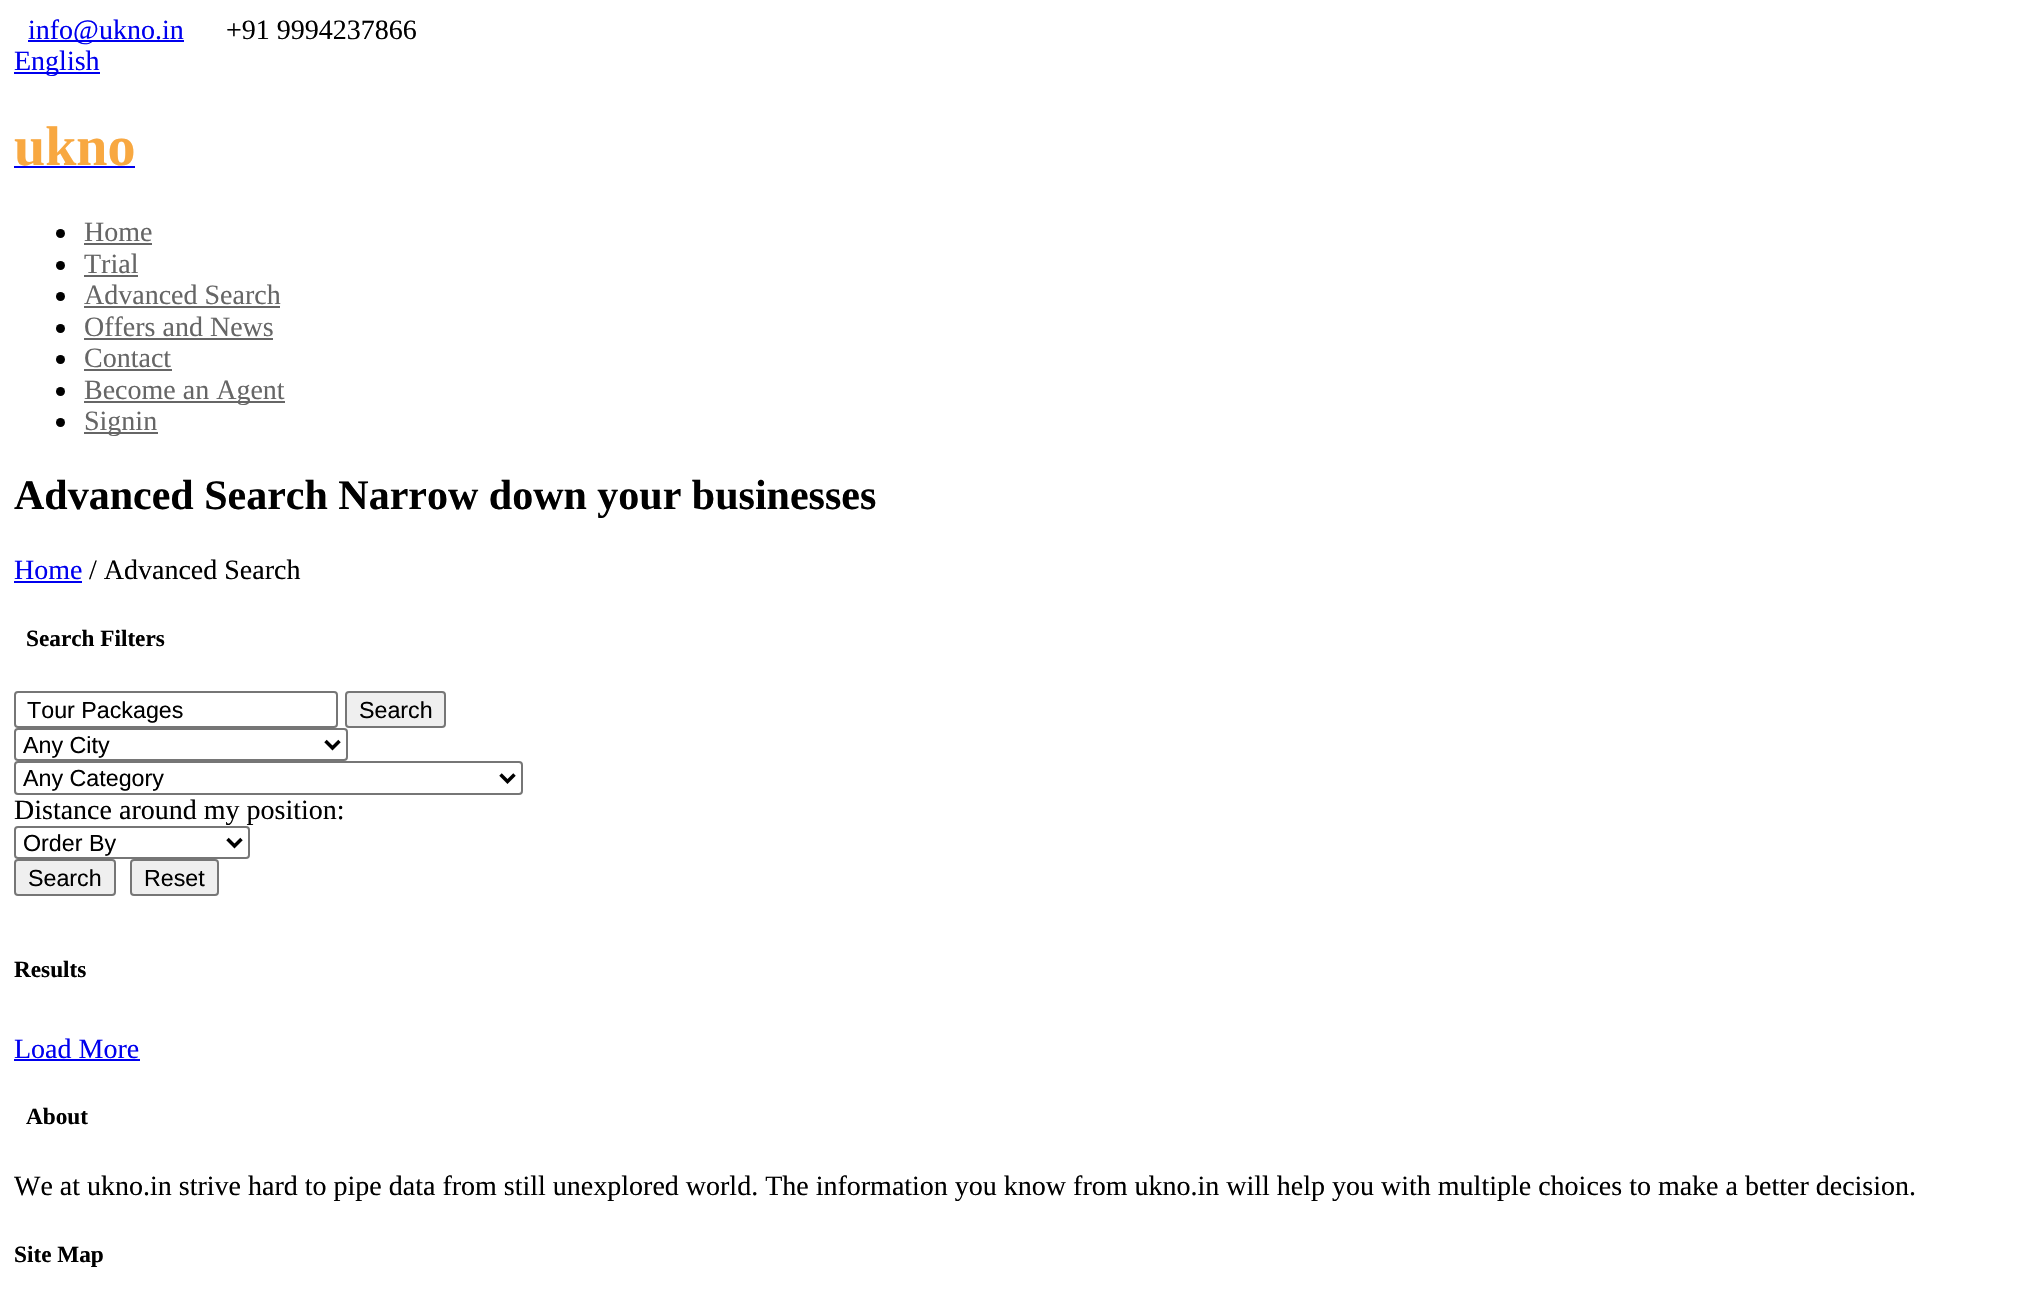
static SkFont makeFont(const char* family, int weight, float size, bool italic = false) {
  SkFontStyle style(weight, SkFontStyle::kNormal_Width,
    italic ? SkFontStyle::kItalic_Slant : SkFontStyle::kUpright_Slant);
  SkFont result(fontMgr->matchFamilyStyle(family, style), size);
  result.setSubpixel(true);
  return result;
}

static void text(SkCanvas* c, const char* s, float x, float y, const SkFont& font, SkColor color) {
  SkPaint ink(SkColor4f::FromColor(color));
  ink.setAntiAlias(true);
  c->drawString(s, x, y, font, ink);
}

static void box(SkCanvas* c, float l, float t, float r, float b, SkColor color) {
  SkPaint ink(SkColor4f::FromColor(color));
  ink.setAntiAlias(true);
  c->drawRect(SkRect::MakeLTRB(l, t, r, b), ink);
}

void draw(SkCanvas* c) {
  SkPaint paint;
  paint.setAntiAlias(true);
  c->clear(0xffffffff);
  box(c, 28, 40, 184, 42, 0xff0000ee);
  SkFont face1 = makeFont("Liberation Serif", 400, 28);
  text(c, "info@ukno.in", 28, 39, face1, 0xff0000ee);
  text(c, "+91 9994237866", 226, 39, face1, 0xff000000);
  box(c, 14, 72, 100, 74, 0xff0000ee);
  text(c, "English", 14, 70, face1, 0xff0000ee);
  SkFont face2 = makeFont("Liberation Serif", 700, 56);
  text(c, "ukno", 14, 165, face2, 0xfff8a841);
  box(c, 14, 166, 135, 168, 0xff0000ee);
  paint.setColor(0xff000000);
  c->drawCircle(60.5f, 233.5f, 4.5f, paint);
  text(c, "Home", 84, 241, face1, 0xff666666);
  box(c, 84, 243, 152, 245, 0xff666666);
  c->drawCircle(60.5f, 265.5f, 4.5f, paint);
  text(c, "Trial", 84, 273, face1, 0xff666666);
  box(c, 84, 275, 138, 277, 0xff666666);
  c->drawCircle(60.5f, 296.5f, 4.5f, paint);
  text(c, "Advanced Search", 84, 304, face1, 0xff666666);
  box(c, 84, 306, 280, 308, 0xff666666);
  c->drawCircle(60.5f, 328.5f, 4.5f, paint);
  text(c, "Offers and News", 84, 336, face1, 0xff666666);
  box(c, 84, 338, 273, 340, 0xff666666);
  c->drawCircle(60.5f, 359.5f, 4.5f, paint);
  text(c, "Contact", 84, 367, face1, 0xff666666);
  box(c, 84, 369, 172, 371, 0xff666666);
  c->drawCircle(60.5f, 391.5f, 4.5f, paint);
  box(c, 84, 401, 285, 403, 0xff666666);
  text(c, "Become an Agent", 84, 399, face1, 0xff666666);
  c->drawCircle(60.5f, 422.5f, 4.5f, paint);
  box(c, 84, 432, 158, 434, 0xff666666);
  text(c, "Signin", 84, 430, face1, 0xff666666);
  SkFont face3 = makeFont("Liberation Serif", 700, 42);
  text(c, "Advanced Search Narrow down your businesses", 14, 509, face3, 0xff000000);
  text(c, "Home", 14, 579, face1, 0xff0000ee);
  box(c, 14, 581, 82, 583, 0xff0000ee);
  text(c, "/ Advanced Search", 89, 579, face1, 0xff000000);
  SkFont face4 = makeFont("Liberation Serif", 700, 23.25f);
  text(c, "Search Filters", 26, 646, face4, 0xff000000);
  paint.setStyle(SkPaint::kStroke_Style);
  paint.setStrokeWidth(2);
  paint.setColor(0xff767676);
  c->drawRoundRect(SkRect::MakeLTRB(15, 692, 337, 727), 3, 3, paint);
  SkFont face5 = makeFont("Liberation Sans", 400, 23.25f);
  text(c, "Tour Packages", 27, 718, face5, 0xff000000);
  paint.setStyle(SkPaint::kFill_Style);
  paint.setColor(0xffefefef);
  c->drawRoundRect(SkRect::MakeLTRB(346, 692, 445, 727), 3, 3, paint);
  paint.setStyle(SkPaint::kStroke_Style);
  paint.setColor(0xff767676);
  c->drawRoundRect(SkRect::MakeLTRB(346, 692, 445, 727), 3, 3, paint);
  text(c, "Search", 359, 718, face5, 0xff000000);
  c->drawRoundRect(SkRect::MakeLTRB(15, 729, 347, 760), 3, 3, paint);
  paint.setStrokeWidth(3.5f);
  paint.setColor(0xff000000);
  c->drawPath(SkPathBuilder().moveTo(325.5f, 741).lineTo(332.5f, 748).lineTo(339.5f, 741).detach(), paint);
  text(c, "Any City", 23, 753, face5, 0xff000000);
  paint.setStrokeWidth(2);
  paint.setColor(0xff767676);
  c->drawRoundRect(SkRect::MakeLTRB(15, 762, 522, 794), 3, 3, paint);
  paint.setStrokeWidth(3.5f);
  paint.setColor(0xff000000);
  c->drawPath(SkPathBuilder().moveTo(500.5f, 774.5f).lineTo(507.5f, 781.5f).lineTo(514.5f, 774.5f).detach(), paint);
  text(c, "Any Category", 23, 786, face5, 0xff000000);
  text(c, "Distance around my position:", 14, 819, face1, 0xff000000);
  paint.setStrokeWidth(2);
  paint.setColor(0xff767676);
  c->drawRoundRect(SkRect::MakeLTRB(15, 827, 249, 858), 3, 3, paint);
  paint.setStrokeWidth(3.5f);
  paint.setColor(0xff000000);
  c->drawPath(SkPathBuilder().moveTo(227.5f, 839).lineTo(234.5f, 846).lineTo(241.5f, 839).detach(), paint);
  text(c, "Order By", 23, 851, face5, 0xff000000);
  paint.setStyle(SkPaint::kFill_Style);
  paint.setColor(0xffefefef);
  c->drawRoundRect(SkRect::MakeLTRB(15, 860, 115, 895), 3, 3, paint);
  paint.setStyle(SkPaint::kStroke_Style);
  paint.setStrokeWidth(2);
  paint.setColor(0xff767676);
  c->drawRoundRect(SkRect::MakeLTRB(15, 860, 115, 895), 3, 3, paint);
  text(c, "Search", 28, 886, face5, 0xff000000);
  paint.setStyle(SkPaint::kFill_Style);
  paint.setColor(0xffefefef);
  c->drawRoundRect(SkRect::MakeLTRB(131, 860, 218, 895), 3, 3, paint);
  paint.setStyle(SkPaint::kStroke_Style);
  paint.setColor(0xff767676);
  c->drawRoundRect(SkRect::MakeLTRB(131, 860, 218, 895), 3, 3, paint);
  text(c, "Reset", 144, 886, face5, 0xff000000);
  text(c, "Results", 14, 977, face4, 0xff000000);
  text(c, "Load More", 14, 1058, face1, 0xff0000ee);
  box(c, 14, 1059, 140, 1061, 0xff0000ee);
  text(c, "About", 26, 1124, face4, 0xff000000);
  text(c, "We at ukno.in strive hard to pipe data from still unexplored world. The information you know from ukno.in will help you with multiple choices to make a better decision.", 14, 1195, face1, 0xff000000);
  text(c, "Site Map", 14, 1262, face4, 0xff000000);
}
